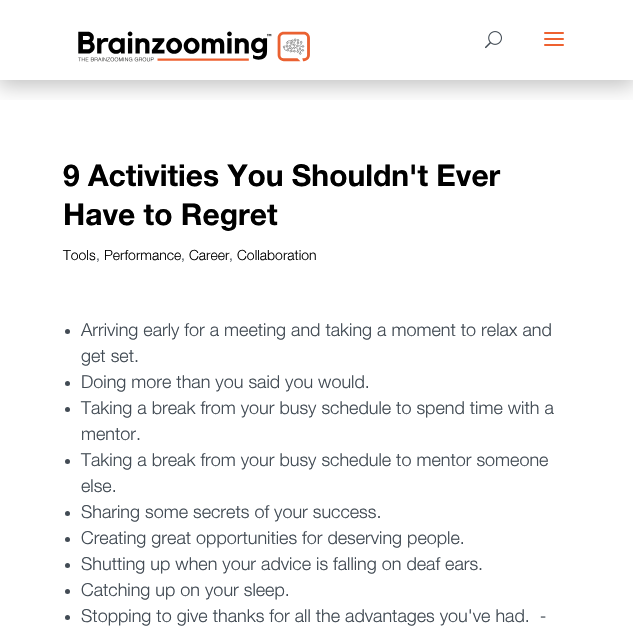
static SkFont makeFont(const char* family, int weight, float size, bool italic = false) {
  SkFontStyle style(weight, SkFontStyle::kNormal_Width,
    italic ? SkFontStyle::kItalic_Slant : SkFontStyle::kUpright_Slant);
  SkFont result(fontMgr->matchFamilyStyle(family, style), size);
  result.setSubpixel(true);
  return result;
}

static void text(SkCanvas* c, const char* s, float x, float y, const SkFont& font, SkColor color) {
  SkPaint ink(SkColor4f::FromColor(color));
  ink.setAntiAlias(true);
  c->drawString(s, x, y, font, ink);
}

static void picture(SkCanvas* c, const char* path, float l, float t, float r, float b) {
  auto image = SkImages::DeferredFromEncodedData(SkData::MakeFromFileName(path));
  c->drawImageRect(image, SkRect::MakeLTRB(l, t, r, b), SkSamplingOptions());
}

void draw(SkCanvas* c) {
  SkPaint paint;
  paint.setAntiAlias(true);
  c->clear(0xffffffff);
  c->save();
  c->clipRect(SkRect::MakeLTRB(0, 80, 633, 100));
  paint.setColor(0x3d000000);
  paint.setMaskFilter(SkMaskFilter::MakeBlur(kNormal_SkBlurStyle, 10));
  c->drawRect(SkRect::MakeLTRB(-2, 2, 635, 86), paint);
  paint.setMaskFilter(nullptr);
  c->restore();
  picture(c, "img_01.png", 78, 31, 310, 62);
  picture(c, "img_02.png", 485, 31, 502, 49);
  picture(c, "img_03.png", 544, 32, 564, 46);
  SkFont face1 = makeFont("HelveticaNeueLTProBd", 700, 30);
  text(c, "9 Activities You Shouldn't Ever", 63, 186, face1, 0xff000000);
  text(c, "Have to Regret", 63, 225, face1, 0xff000000);
  SkFont face2 = makeFont("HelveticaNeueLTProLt", 300, 14);
  text(c, "Tools", 63, 260, face2, 0xff000000);
  text(c, ",", 96, 260, face2, 0xff424b54);
  text(c, "Performance", 104, 260, face2, 0xff000000);
  text(c, ",", 181, 260, face2, 0xff424b54);
  text(c, "Career", 189, 260, face2, 0xff000000);
  text(c, ",", 229, 260, face2, 0xff424b54);
  text(c, "Collaboration", 237, 260, face2, 0xff000000);
  paint.setColor(0xff424b54);
  c->drawCircle(67.5f, 331.5f, 2.5f, paint);
  SkFont face3 = makeFont("HelveticaNeueLTProLt", 300, 18);
  text(c, "Arriving early for a meeting and taking a moment to relax and", 81, 336, face3, 0xff424b54);
  text(c, "get set.", 81, 362, face3, 0xff424b54);
  c->drawCircle(67.5f, 383.5f, 2.5f, paint);
  text(c, "Doing more than you said you would.", 81, 388, face3, 0xff424b54);
  c->drawCircle(67.5f, 409.5f, 2.5f, paint);
  text(c, "Taking a break from your busy schedule to spend time with a", 81, 414, face3, 0xff424b54);
  text(c, "mentor.", 81, 440, face3, 0xff424b54);
  c->drawCircle(67.5f, 461.5f, 2.5f, paint);
  text(c, "Taking a break from your busy schedule to mentor someone", 81, 466, face3, 0xff424b54);
  text(c, "else.", 81, 492, face3, 0xff424b54);
  c->drawCircle(67.5f, 513.5f, 2.5f, paint);
  text(c, "Sharing some secrets of your success.", 81, 518, face3, 0xff424b54);
  c->drawCircle(67.5f, 539.5f, 2.5f, paint);
  text(c, "Creating great opportunities for deserving people.", 81, 544, face3, 0xff424b54);
  c->drawCircle(67.5f, 565.5f, 2.5f, paint);
  text(c, "Shutting up when your advice is falling on deaf ears.", 81, 570, face3, 0xff424b54);
  c->drawCircle(67.5f, 591.5f, 2.5f, paint);
  text(c, "Catching up on your sleep.", 81, 596, face3, 0xff424b54);
  c->drawCircle(67.5f, 617.5f, 2.5f, paint);
  text(c, "Stopping to give thanks for all the advantages you've had.  -", 81, 622, face3, 0xff424b54);
}
